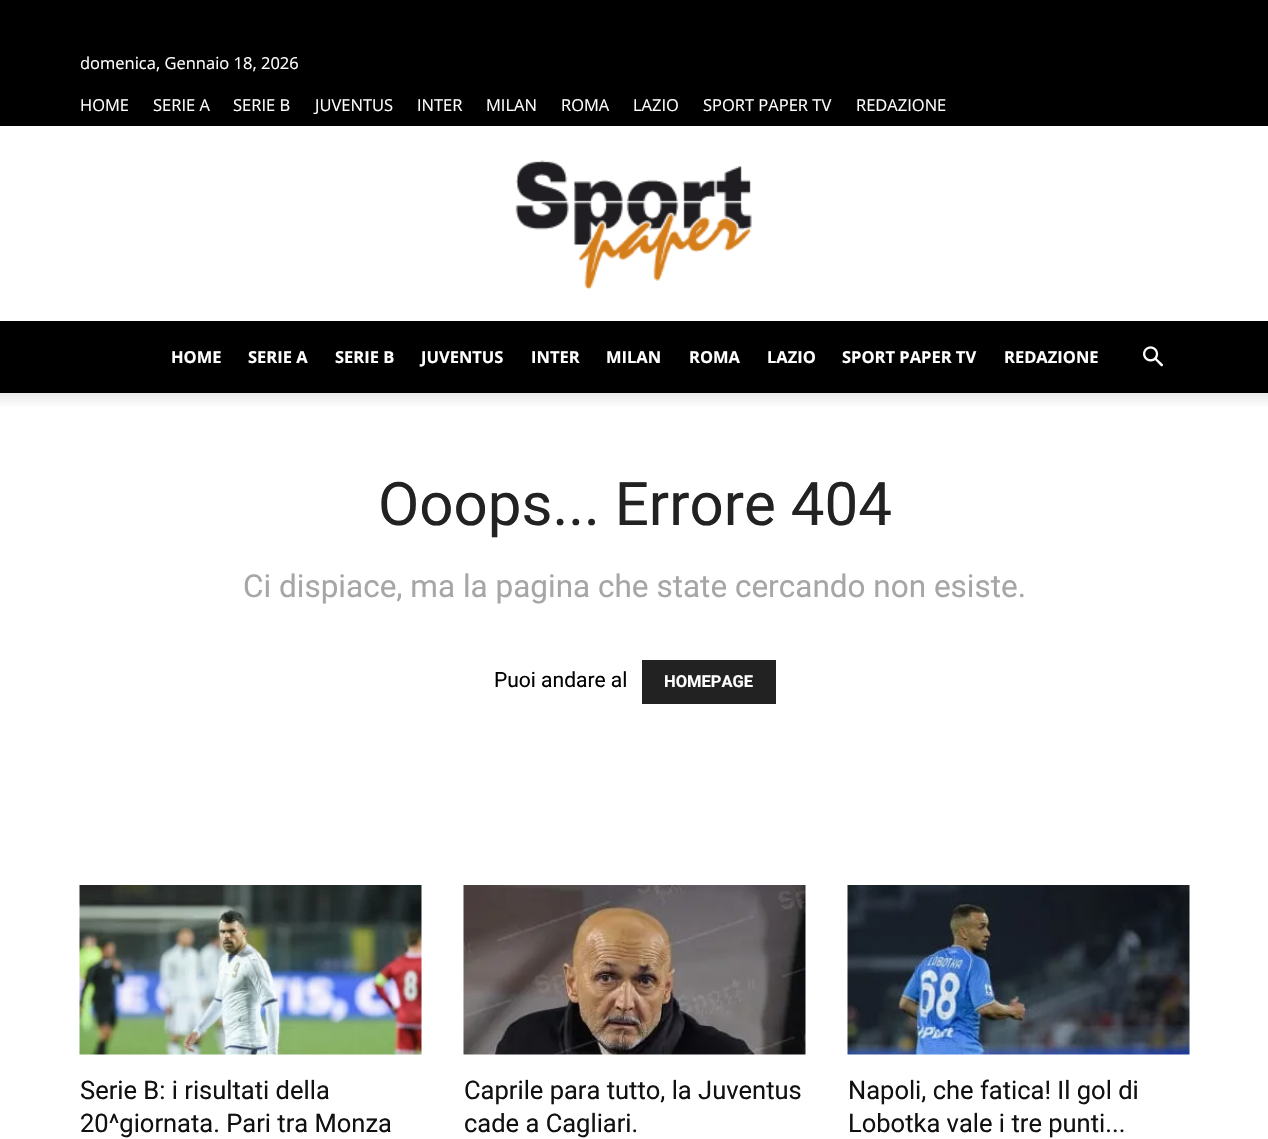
static SkFont makeFont(const char* family, int weight, float size, bool italic = false) {
  SkFontStyle style(weight, SkFontStyle::kNormal_Width,
    italic ? SkFontStyle::kItalic_Slant : SkFontStyle::kUpright_Slant);
  SkFont result(fontMgr->matchFamilyStyle(family, style), size);
  result.setSubpixel(true);
  return result;
}

static void text(SkCanvas* c, const char* s, float x, float y, const SkFont& font, SkColor color) {
  SkPaint ink(SkColor4f::FromColor(color));
  ink.setAntiAlias(true);
  c->drawString(s, x, y, font, ink);
}

static void box(SkCanvas* c, float l, float t, float r, float b, SkColor color) {
  SkPaint ink(SkColor4f::FromColor(color));
  ink.setAntiAlias(true);
  c->drawRect(SkRect::MakeLTRB(l, t, r, b), ink);
}

static void picture(SkCanvas* c, const char* path, float l, float t, float r, float b) {
  auto image = SkImages::DeferredFromEncodedData(SkData::MakeFromFileName(path));
  c->drawImageRect(image, SkRect::MakeLTRB(l, t, r, b), SkSamplingOptions());
}

void draw(SkCanvas* c) {
  SkPaint paint;
  paint.setAntiAlias(true);
  c->clear(0xff000000);
  SkFont face1 = makeFont("Open Sans", 400, 16.5f);
  text(c, "domenica, Gennaio 18, 2026", 80, 69, face1, 0xffffffff);
  text(c, "HOME", 80, 111, face1, 0xffffffff);
  text(c, "SERIE A", 153, 111, face1, 0xffffffff);
  text(c, "SERIE B", 233, 111, face1, 0xffffffff);
  text(c, "JUVENTUS", 315, 111, face1, 0xffffffff);
  text(c, "INTER", 417, 111, face1, 0xffffffff);
  text(c, "MILAN", 486, 111, face1, 0xffffffff);
  text(c, "ROMA", 561, 111, face1, 0xffffffff);
  text(c, "LAZIO", 633, 111, face1, 0xffffffff);
  text(c, "SPORT PAPER TV", 703, 111, face1, 0xffffffff);
  text(c, "REDAZIONE", 856, 111, face1, 0xffffffff);
  box(c, 0, 126, 1268, 321, 0xffffffff);
  picture(c, "img_01.png", 515, 160, 752, 290);
  SkFont face2 = makeFont("Open Sans", 700, 16.5f);
  text(c, "HOME", 171, 363, face2, 0xffffffff);
  text(c, "SERIE A", 248, 363, face2, 0xffffffff);
  text(c, "SERIE B", 335, 363, face2, 0xffffffff);
  text(c, "JUVENTUS", 421, 363, face2, 0xffffffff);
  text(c, "INTER", 531, 363, face2, 0xffffffff);
  text(c, "MILAN", 606, 363, face2, 0xffffffff);
  text(c, "ROMA", 689, 363, face2, 0xffffffff);
  text(c, "LAZIO", 767, 363, face2, 0xffffffff);
  text(c, "SPORT PAPER TV", 842, 363, face2, 0xffffffff);
  text(c, "REDAZIONE", 1004, 363, face2, 0xffffffff);
  picture(c, "img_02.png", 1143, 346, 1163, 367);
  box(c, 0, 393, 1268, 1139, 0xffffffff);
  picture(c, "img_03.png", 0, 393, 1268, 406);
  SkFont face3 = makeFont("Roboto", 400, 60);
  text(c, "Ooops... Errore 404", 378, 525, face3, 0xff222222);
  SkFont face4 = makeFont("Roboto", 400, 31.5f);
  text(c, "Ci dispiace, ma la pagina che state cercando non esiste.", 243, 597, face4, 0xffa6a6a6);
  SkFont face5 = makeFont("Roboto", 400, 21);
  text(c, "Puoi andare al", 494, 687, face5, 0xff000000);
  box(c, 642, 660, 776, 704, 0xff222222);
  SkFont face6 = makeFont("Roboto", 700, 16.5f);
  text(c, "HOMEPAGE", 664, 687, face6, 0xffffffff);
  picture(c, "img_04.png", 79, 885, 422, 1055);
  SkFont face7 = makeFont("Roboto", 400, 25.5f);
  text(c, "Serie B: i risultati della", 80, 1099, face7, 0xff111111);
  text(c, "20^giornata. Pari tra Monza", 80, 1132, face7, 0xff111111);
  picture(c, "img_05.png", 463, 885, 806, 1055);
  text(c, "Caprile para tutto, la Juventus", 464, 1099, face7, 0xff111111);
  text(c, "cade a Cagliari.", 464, 1132, face7, 0xff111111);
  picture(c, "img_06.png", 847, 885, 1190, 1055);
  text(c, "Napoli, che fatica! Il gol di", 848, 1099, face7, 0xff111111);
  text(c, "Lobotka vale i tre punti...", 848, 1132, face7, 0xff111111);
}
